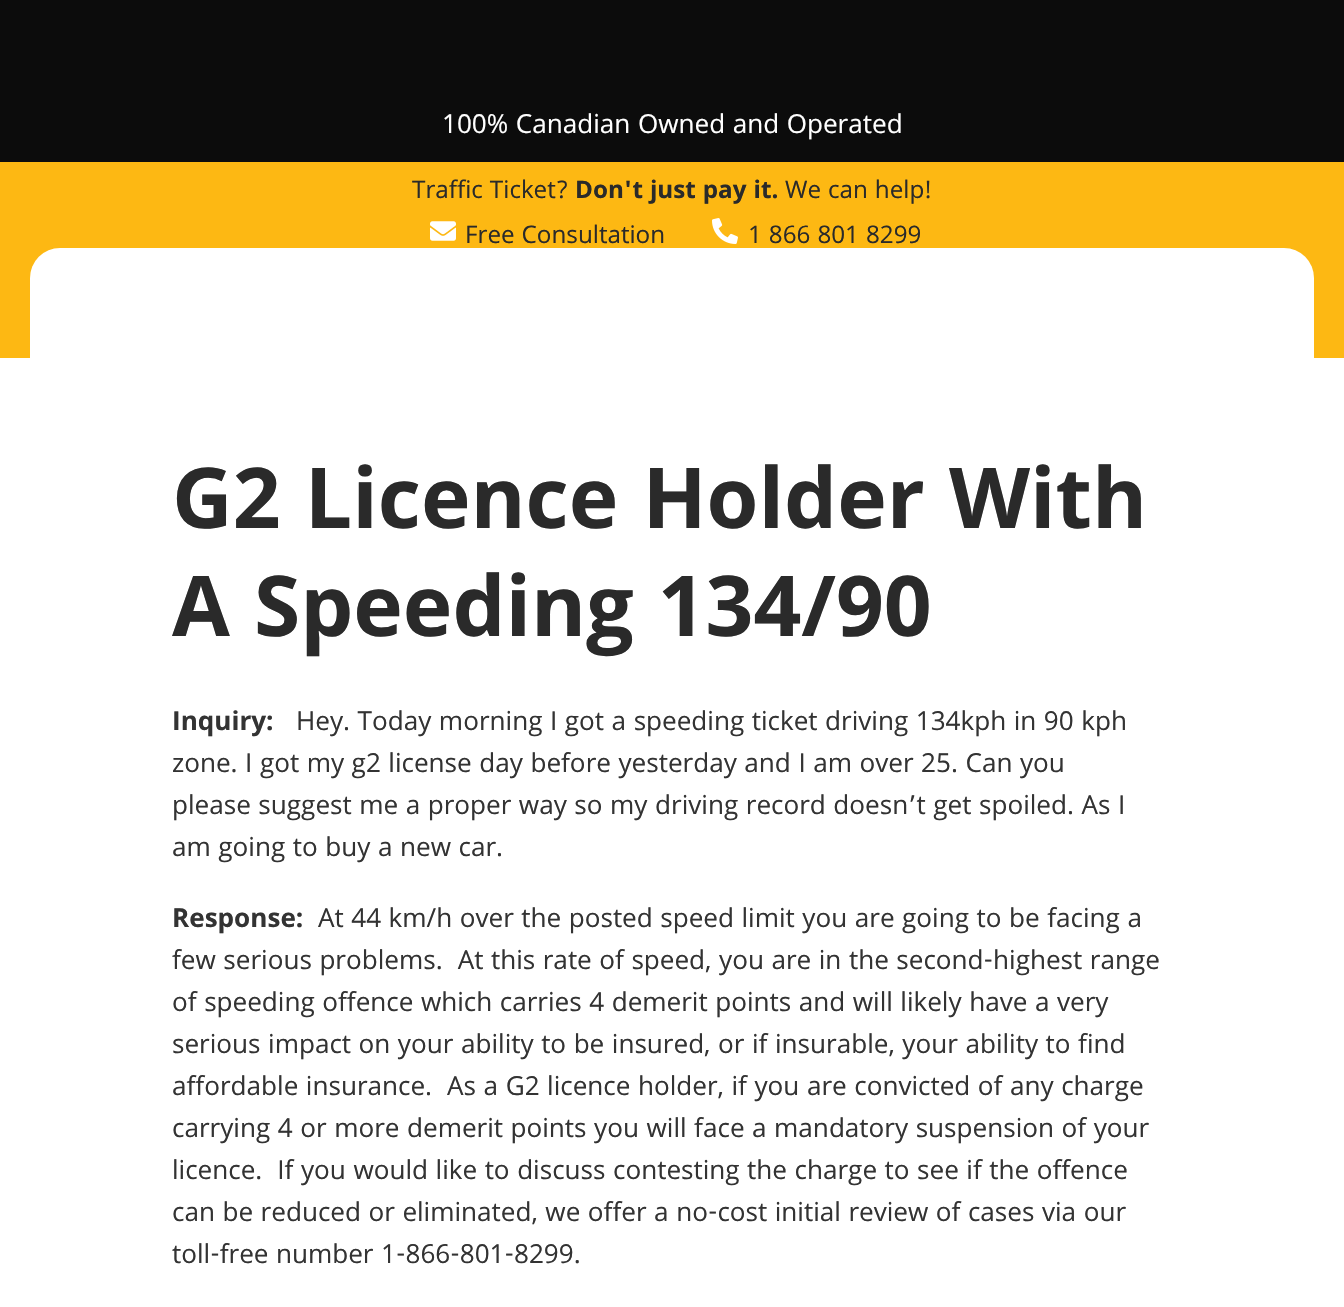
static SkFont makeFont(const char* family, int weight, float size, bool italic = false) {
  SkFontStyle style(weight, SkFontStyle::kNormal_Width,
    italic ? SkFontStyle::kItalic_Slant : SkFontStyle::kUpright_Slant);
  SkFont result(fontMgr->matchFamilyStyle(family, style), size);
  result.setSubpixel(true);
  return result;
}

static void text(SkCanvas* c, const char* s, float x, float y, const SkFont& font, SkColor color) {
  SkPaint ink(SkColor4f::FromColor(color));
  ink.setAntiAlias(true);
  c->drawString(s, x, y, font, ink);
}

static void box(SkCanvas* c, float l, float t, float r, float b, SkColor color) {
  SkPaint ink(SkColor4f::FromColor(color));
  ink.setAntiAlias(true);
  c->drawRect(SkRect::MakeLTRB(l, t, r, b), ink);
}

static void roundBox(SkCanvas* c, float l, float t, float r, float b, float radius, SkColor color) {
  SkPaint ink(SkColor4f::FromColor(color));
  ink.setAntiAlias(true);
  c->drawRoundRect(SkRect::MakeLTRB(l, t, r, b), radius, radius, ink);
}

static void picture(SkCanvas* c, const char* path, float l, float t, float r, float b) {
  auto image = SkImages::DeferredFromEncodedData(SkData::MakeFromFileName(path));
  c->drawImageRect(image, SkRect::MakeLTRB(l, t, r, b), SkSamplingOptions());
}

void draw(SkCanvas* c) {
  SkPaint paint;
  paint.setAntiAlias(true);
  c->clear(0xffffffff);
  box(c, 0, 0, 1344, 162, 0xff0c0c0c);
  SkFont face1 = makeFont("Khula", 400, 28);
  text(c, "100% Canadian Owned and Operated", 442, 133, face1, 0xffffffff);
  box(c, 0, 162, 1344, 358, 0xfffdb813);
  SkFont face2 = makeFont("Khula", 400, 26);
  text(c, "Traffic Ticket?", 412, 198, face2, 0xff2a2a2a);
  SkFont face3 = makeFont("Khula", 700, 26);
  text(c, "Don't just pay it.", 575, 198, face3, 0xff2a2a2a);
  text(c, "We can help!", 785, 198, face2, 0xff2a2a2a);
  picture(c, "img_01.png", 430, 221, 456, 241);
  text(c, "Free Consultation", 465, 243, face2, 0xff2a2a2a);
  picture(c, "img_02.png", 712, 218, 738, 244);
  text(c, "1 866 801 8299", 748, 243, face2, 0xff2a2a2a);
  roundBox(c, 30, 248, 1314, 420, 30, 0xffffffff);
  SkFont face4 = makeFont("Khula", 700, 90);
  text(c, "G2 Licence Holder With", 172, 528, face4, 0xff2a2a2a);
  text(c, "A Speeding 134/90", 172, 636, face4, 0xff2a2a2a);
  SkFont face5 = makeFont("Khula", 700, 28);
  text(c, "Inquiry:", 172, 730, face5, 0xff333333);
  text(c, "Hey. Today morning I got a speeding ticket driving 134kph in 90 kph", 296, 730, face1, 0xff333333);
  text(c, "zone. I got my g2 license day before yesterday and I am over 25. Can you", 172, 772, face1, 0xff333333);
  text(c, "please suggest me a proper way so my driving record doesn’t get spoiled. As I", 172, 814, face1, 0xff333333);
  text(c, "am going to buy a new car.", 172, 856, face1, 0xff333333);
  text(c, "Response:", 172, 927, face5, 0xff333333);
  text(c, "At 44 km/h over the posted speed limit you are going to be facing a", 318, 927, face1, 0xff333333);
  text(c, "few serious problems.  At this rate of speed, you are in the second-highest range", 172, 969, face1, 0xff333333);
  text(c, "of speeding offence which carries 4 demerit points and will likely have a very", 172, 1011, face1, 0xff333333);
  text(c, "serious impact on your ability to be insured, or if insurable, your ability to find", 172, 1053, face1, 0xff333333);
  text(c, "affordable insurance.  As a G2 licence holder, if you are convicted of any charge", 172, 1095, face1, 0xff333333);
  text(c, "carrying 4 or more demerit points you will face a mandatory suspension of your", 172, 1137, face1, 0xff333333);
  text(c, "licence.  If you would like to discuss contesting the charge to see if the offence", 172, 1179, face1, 0xff333333);
  text(c, "can be reduced or eliminated, we offer a no-cost initial review of cases via our", 172, 1221, face1, 0xff333333);
  text(c, "toll-free number 1-866-801-8299.", 172, 1263, face1, 0xff333333);
}
